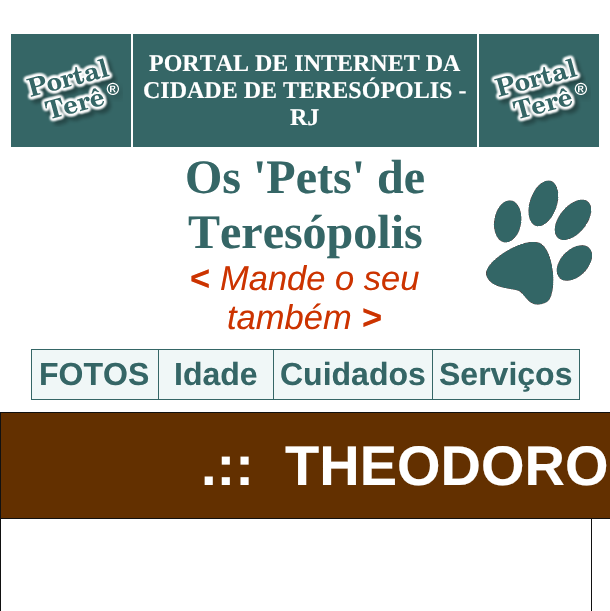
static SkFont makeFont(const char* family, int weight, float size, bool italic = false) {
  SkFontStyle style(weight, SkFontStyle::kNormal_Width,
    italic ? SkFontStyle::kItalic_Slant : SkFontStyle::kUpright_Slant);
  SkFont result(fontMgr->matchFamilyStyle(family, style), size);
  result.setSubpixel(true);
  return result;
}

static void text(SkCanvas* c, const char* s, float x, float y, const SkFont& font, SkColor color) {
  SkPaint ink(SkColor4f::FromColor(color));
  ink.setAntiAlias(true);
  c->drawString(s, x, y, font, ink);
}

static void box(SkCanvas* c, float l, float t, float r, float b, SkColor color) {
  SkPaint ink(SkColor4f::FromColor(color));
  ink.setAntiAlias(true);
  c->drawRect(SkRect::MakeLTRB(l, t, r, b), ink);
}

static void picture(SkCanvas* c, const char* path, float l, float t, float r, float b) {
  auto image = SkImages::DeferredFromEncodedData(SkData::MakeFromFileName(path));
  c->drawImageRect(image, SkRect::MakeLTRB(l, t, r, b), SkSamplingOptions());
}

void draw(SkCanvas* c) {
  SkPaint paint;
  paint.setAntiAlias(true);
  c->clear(0xffffffff);
  box(c, 11, 34, 131, 147, 0xff356666);
  picture(c, "img_01.png", 22, 54, 123, 127);
  box(c, 133, 34, 477, 147, 0xff356666);
  SkFont face1 = makeFont("Liberation Serif", 700, 24);
  text(c, "PORTAL DE INTERNET DA", 149, 71, face1, 0xffffffff);
  text(c, "CIDADE DE TERESÓPOLIS -", 143, 98, face1, 0xffffffff);
  text(c, "RJ", 290, 125, face1, 0xffffffff);
  box(c, 479, 34, 599, 147, 0xff356666);
  picture(c, "img_01.png", 490, 54, 591, 127);
  SkFont face2 = makeFont("Liberation Serif", 700, 48);
  text(c, "Os 'Pets' de", 185, 193, face2, 0xff356666);
  text(c, "Teresópolis", 188, 248, face2, 0xff356666);
  SkFont face3 = makeFont("Liberation Sans", 700, 34.5f);
  text(c, "<", 190, 290, face3, 0xffcc3300);
  SkFont face4 = makeFont("Liberation Sans", 400, 34.5f, true);
  text(c, "Mande o seu", 220, 290, face4, 0xffcc3300);
  text(c, "também", 227, 329, face4, 0xffcc3300);
  text(c, ">", 362, 329, face3, 0xffcc3300);
  picture(c, "img_02.png", 486, 180, 592, 305);
  box(c, 32, 350, 158, 399, 0xfff0f7f7);
  box(c, 432, 349, 580, 350, 0xff356666);
  box(c, 579, 349, 580, 400, 0xff356666);
  box(c, 432, 399, 580, 400, 0xff356666);
  box(c, 432, 349, 433, 400, 0xff356666);
  box(c, 273, 349, 433, 350, 0xff356666);
  box(c, 273, 399, 433, 400, 0xff356666);
  box(c, 273, 349, 274, 400, 0xff356666);
  box(c, 158, 349, 274, 350, 0xff356666);
  box(c, 158, 399, 274, 400, 0xff356666);
  box(c, 158, 349, 159, 400, 0xff356666);
  box(c, 31, 349, 159, 350, 0xff356666);
  box(c, 31, 399, 159, 400, 0xff356666);
  box(c, 31, 349, 32, 400, 0xff356666);
  SkFont face5 = makeFont("Liberation Sans", 700, 32);
  text(c, "FOTOS", 39, 385, face5, 0xff356666);
  box(c, 159, 350, 273, 399, 0xfff0f7f7);
  text(c, "Idade", 174, 385, face5, 0xff356666);
  box(c, 274, 350, 432, 399, 0xfff0f7f7);
  text(c, "Cuidados", 280, 385, face5, 0xff356666);
  box(c, 433, 350, 579, 399, 0xfff0f7f7);
  text(c, "Serviços", 439, 385, face5, 0xff356666);
  box(c, 0, 412, 610, 413, 0xff111111);
  box(c, 0, 412, 1, 611, 0xff111111);
  box(c, 1, 413, 610, 518, 0xff633000);
  SkFont face6 = makeFont("Liberation Sans", 700, 56);
  text(c, ".::", 201, 485, face6, 0xffffffff);
  text(c, "THEODORO", 285, 485, face6, 0xffffffff);
  box(c, 591, 518, 610, 519, 0xff111111);
  box(c, 591, 518, 592, 611, 0xff111111);
  box(c, 0, 518, 592, 519, 0xff111111);
}
